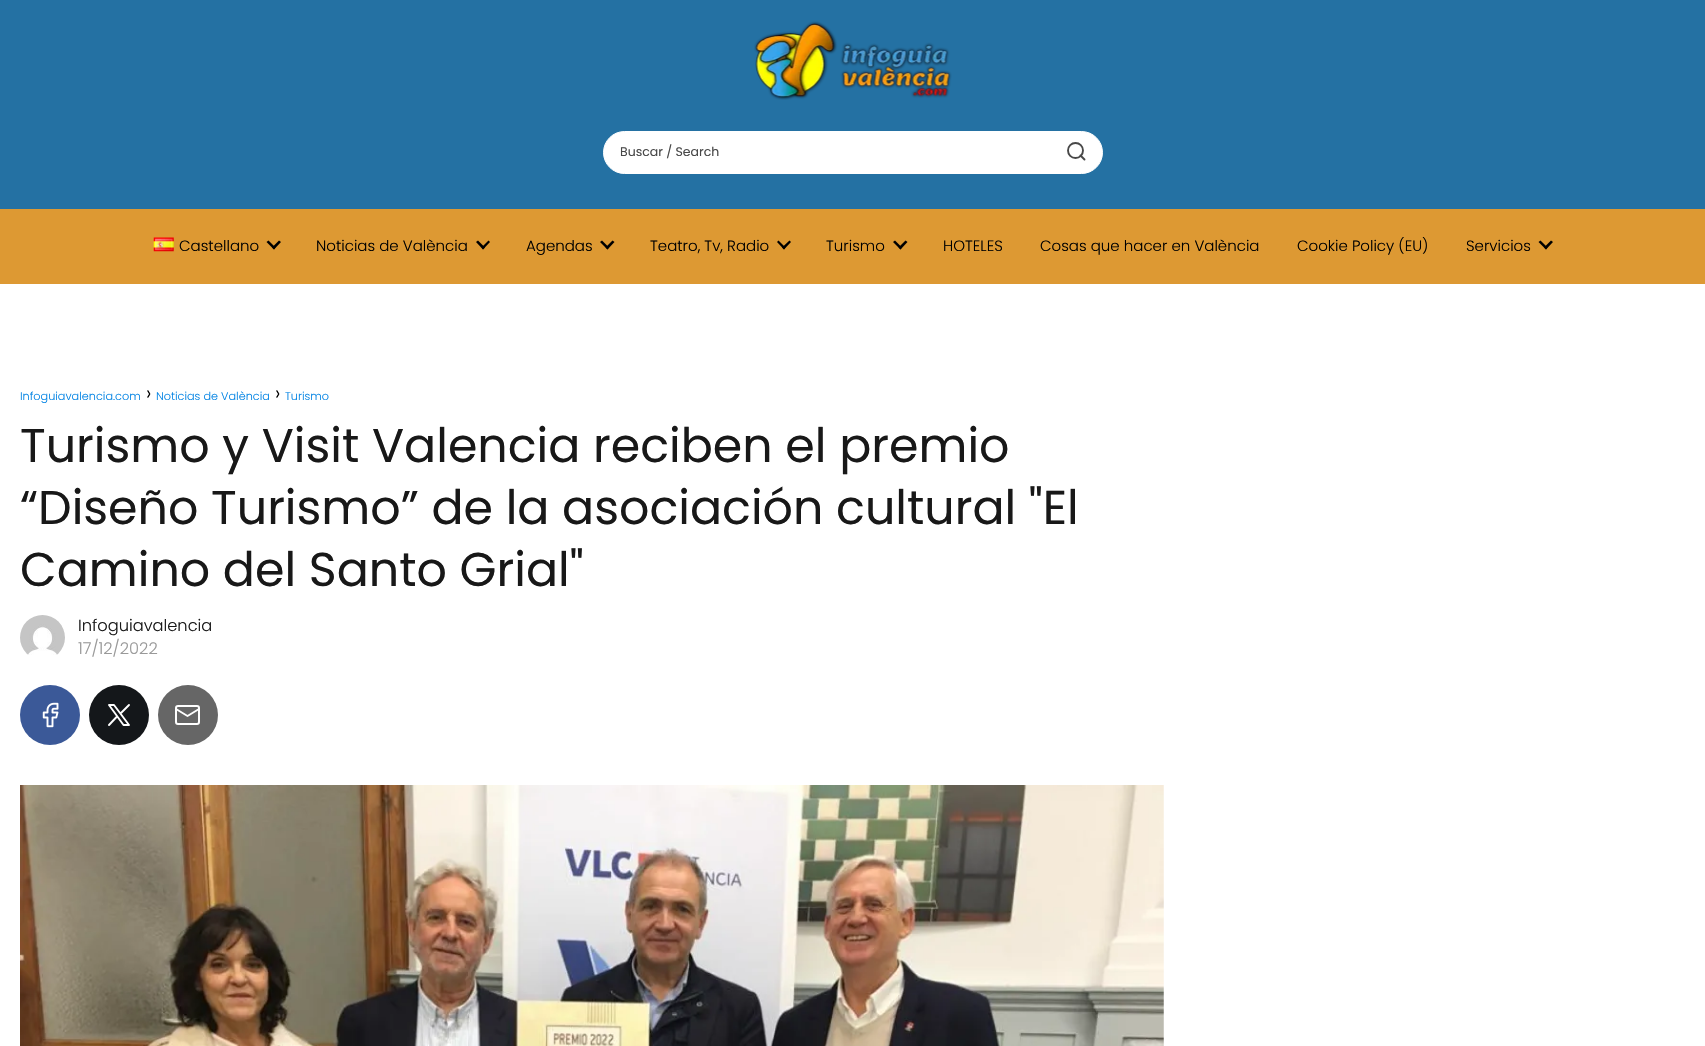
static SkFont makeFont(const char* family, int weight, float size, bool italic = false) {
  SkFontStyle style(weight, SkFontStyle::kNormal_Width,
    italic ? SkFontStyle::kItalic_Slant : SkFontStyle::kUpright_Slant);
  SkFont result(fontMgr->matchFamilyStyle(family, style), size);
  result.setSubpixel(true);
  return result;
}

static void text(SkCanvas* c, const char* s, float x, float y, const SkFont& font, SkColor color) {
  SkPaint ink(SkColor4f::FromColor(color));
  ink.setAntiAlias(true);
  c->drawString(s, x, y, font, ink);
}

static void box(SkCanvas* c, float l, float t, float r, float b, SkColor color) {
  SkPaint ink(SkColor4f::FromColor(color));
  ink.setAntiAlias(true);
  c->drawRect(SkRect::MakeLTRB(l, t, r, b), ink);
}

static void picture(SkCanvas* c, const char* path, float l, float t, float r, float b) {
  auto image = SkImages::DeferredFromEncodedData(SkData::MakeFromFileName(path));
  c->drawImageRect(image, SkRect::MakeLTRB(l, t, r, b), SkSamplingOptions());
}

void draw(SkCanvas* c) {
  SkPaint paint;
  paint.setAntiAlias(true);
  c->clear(0xffffffff);
  box(c, 0, 0, 1705, 209, 0xff2471a3);
  picture(c, "img_01.png", 754, 21, 952, 100);
  paint.setColor(0xffffffff);
  c->drawRoundRect(SkRect::MakeLTRB(603.5f, 131.5f, 1102.5f, 173.5f), 21, 21, paint);
  paint.setStyle(SkPaint::kStroke_Style);
  paint.setStrokeWidth(1);
  c->drawRoundRect(SkRect::MakeLTRB(603.5f, 131.5f, 1102.5f, 173.5f), 21, 21, paint);
  SkFont face1 = makeFont("Poppins", 400, 12.5f);
  text(c, "Buscar / Search", 620, 156, face1, 0xff484848);
  paint.setStrokeWidth(1.9f);
  paint.setColor(0xff484848);
  c->drawCircle(1075.5f, 150.5f, 7.5f, paint);
  paint.setStrokeCap(SkPaint::kRound_Cap);
  paint.setStrokeJoin(SkPaint::kRound_Join);
  c->drawPath(SkPathBuilder().moveTo(1084.5f, 159.5f).lineTo(1080.5f, 155.5f).detach(), paint);
  box(c, 0, 209, 1705, 284, 0xffdd9933);
  picture(c, "img_02.png", 153, 237, 174, 252);
  SkFont face2 = makeFont("Poppins", 300, 15);
  text(c, "Castellano", 179, 251, face2, 0xff000000);
  paint.setStyle(SkPaint::kFill_Style);
  paint.setColor(0xff000000);
  c->drawPath(SkPathBuilder().moveTo(279, 240.5f).lineTo(281, 242).lineTo(274, 249.5f).lineTo(272, 247.5f).close().detach(), paint);
  c->drawPath(SkPathBuilder().moveTo(268.5f, 240.5f).lineTo(275.5f, 247.5f).lineTo(274, 249.5f).lineTo(266.5f, 242).close().detach(), paint);
  text(c, "Noticias de València", 316, 251, face2, 0xff000000);
  c->drawPath(SkPathBuilder().moveTo(488.5f, 240.5f).lineTo(490, 242).lineTo(483, 249.5f).lineTo(481.5f, 247.5f).close().detach(), paint);
  c->drawPath(SkPathBuilder().moveTo(478, 240.5f).lineTo(485, 247.5f).lineTo(483, 249.5f).lineTo(476, 242).close().detach(), paint);
  text(c, "Agendas", 526, 251, face2, 0xff000000);
  c->drawPath(SkPathBuilder().moveTo(612.5f, 240.5f).lineTo(614.5f, 242).lineTo(607.5f, 249.5f).lineTo(605.5f, 247.5f).close().detach(), paint);
  c->drawPath(SkPathBuilder().moveTo(602, 240.5f).lineTo(609, 247.5f).lineTo(607.5f, 249.5f).lineTo(600, 242).close().detach(), paint);
  text(c, "Teatro, Tv, Radio", 650, 251, face2, 0xff000000);
  c->drawPath(SkPathBuilder().moveTo(789.5f, 240.5f).lineTo(791, 242).lineTo(784, 249.5f).lineTo(782, 247.5f).close().detach(), paint);
  c->drawPath(SkPathBuilder().moveTo(778.5f, 240.5f).lineTo(785.5f, 247.5f).lineTo(784, 249.5f).lineTo(777, 242).close().detach(), paint);
  text(c, "Turismo", 826, 251, face2, 0xff000000);
  c->drawPath(SkPathBuilder().moveTo(905.5f, 240.5f).lineTo(907.5f, 242).lineTo(900.5f, 249.5f).lineTo(898.5f, 247.5f).close().detach(), paint);
  c->drawPath(SkPathBuilder().moveTo(895, 240.5f).lineTo(902, 247.5f).lineTo(900.5f, 249.5f).lineTo(893, 242).close().detach(), paint);
  text(c, "HOTELES", 943, 251, face2, 0xff000000);
  text(c, "Cosas que hacer en València", 1040, 251, face2, 0xff000000);
  text(c, "Cookie Policy (EU)", 1297, 251, face2, 0xff000000);
  text(c, "Servicios", 1466, 251, face2, 0xff000000);
  c->drawPath(SkPathBuilder().moveTo(1551, 240.5f).lineTo(1553, 242).lineTo(1546, 249.5f).lineTo(1544, 247.5f).close().detach(), paint);
  c->drawPath(SkPathBuilder().moveTo(1540.5f, 240.5f).lineTo(1547.5f, 247.5f).lineTo(1546, 249.5f).lineTo(1538.5f, 242).close().detach(), paint);
  SkFont face3 = makeFont("Poppins", 300, 11.25f);
  text(c, "Infoguiavalencia.com", 20, 400, face3, 0xff0183e4);
  SkFont face4 = makeFont("Poppins", 300, 20);
  text(c, "›", 146, 400, face4, 0xff000000);
  text(c, "Noticias de València", 156, 400, face3, 0xff0183e4);
  text(c, "›", 275, 400, face4, 0xff000000);
  text(c, "Turismo", 285, 400, face3, 0xff0183e4);
  SkFont face5 = makeFont("Poppins", 400, 47.5f);
  text(c, "Turismo y Visit Valencia reciben el premio", 20, 462, face5, 0xff181818);
  text(c, "“Diseño Turismo” de la asociación cultural \"El", 20, 524, face5, 0xff181818);
  text(c, "Camino del Santo Grial\"", 20, 586, face5, 0xff181818);
  picture(c, "img_03.png", 20, 615, 65, 655);
  SkFont face6 = makeFont("Poppins", 300, 16.25f);
  text(c, "Infoguiavalencia", 78, 631, face6, 0xff181818);
  text(c, "17/12/2022", 78, 654, face6, 0xff999999);
  paint.setColor(0xff3b5998);
  c->drawCircle(50, 715, 30, paint);
  picture(c, "img_04.png", 42, 702, 59, 728);
  paint.setColor(0xff14171a);
  c->drawCircle(119, 715, 30, paint);
  paint.setStyle(SkPaint::kStroke_Style);
  paint.setColor(0xffffffff);
  c->drawPath(SkPathBuilder().moveTo(109, 705).lineTo(123.5f, 725).lineTo(129, 725).lineTo(114, 705).close().moveTo(109, 725).lineTo(117, 716.5f).moveTo(120.5f, 713.5f).lineTo(129, 705).detach(), paint);
  paint.setStyle(SkPaint::kFill_Style);
  paint.setColor(0xff666666);
  c->drawCircle(188, 715, 30, paint);
  paint.setStyle(SkPaint::kStroke_Style);
  paint.setStrokeWidth(2);
  paint.setStrokeCap(SkPaint::kButt_Cap);
  paint.setStrokeJoin(SkPaint::kMiter_Join);
  paint.setColor(0xffffffff);
  c->drawRoundRect(SkRect::MakeLTRB(176, 706, 199, 724), 2, 2, paint);
  paint.setStrokeWidth(1.9f);
  paint.setStrokeCap(SkPaint::kRound_Cap);
  paint.setStrokeJoin(SkPaint::kRound_Join);
  c->drawPath(SkPathBuilder().moveTo(176, 709).lineTo(187.5f, 716).lineTo(199, 709).detach(), paint);
  picture(c, "img_05.png", 20, 785, 1164, 1046);
}
